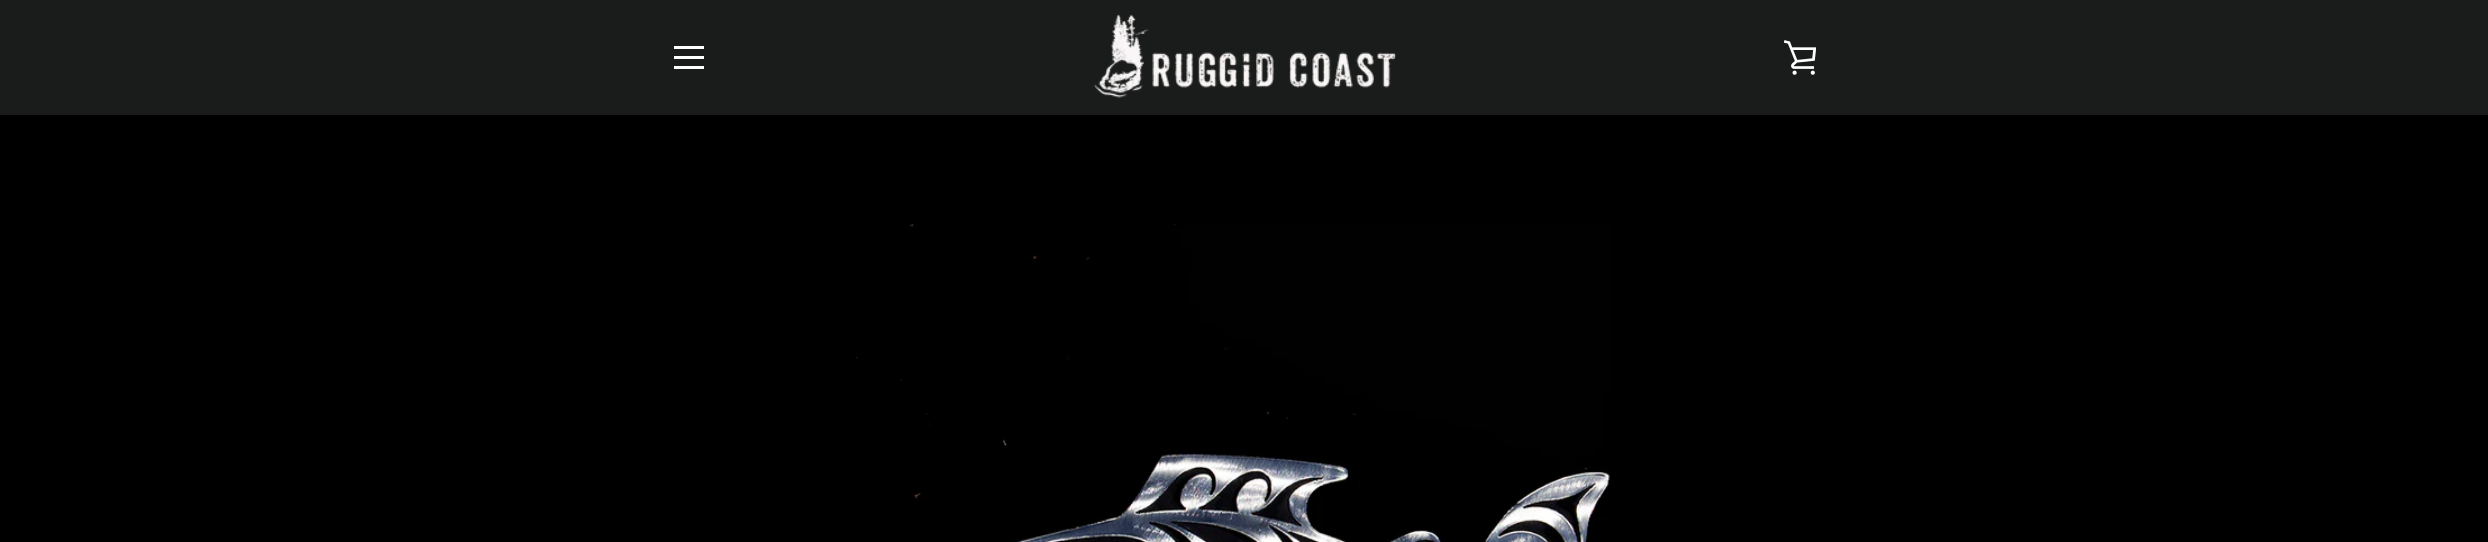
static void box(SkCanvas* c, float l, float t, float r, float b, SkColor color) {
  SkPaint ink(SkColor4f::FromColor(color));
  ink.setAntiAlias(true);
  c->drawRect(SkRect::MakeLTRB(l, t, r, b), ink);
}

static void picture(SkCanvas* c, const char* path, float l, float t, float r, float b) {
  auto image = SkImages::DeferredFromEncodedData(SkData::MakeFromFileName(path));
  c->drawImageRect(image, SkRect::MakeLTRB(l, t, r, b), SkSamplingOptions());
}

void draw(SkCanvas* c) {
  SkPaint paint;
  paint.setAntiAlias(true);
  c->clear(0xff000000);
  box(c, 0, 0, 2488, 115, 0xff191c1b);
  box(c, 674, 46, 704, 49, 0xffffffff);
  box(c, 674, 56, 704, 59, 0xffffffff);
  box(c, 674, 66, 704, 69, 0xffffffff);
  picture(c, "img_01.png", 1093, 14, 1396, 98);
  picture(c, "img_02.png", 1784, 40, 1816, 75);
  picture(c, "img_03.png", 856, 224, 1610, 542);
}
